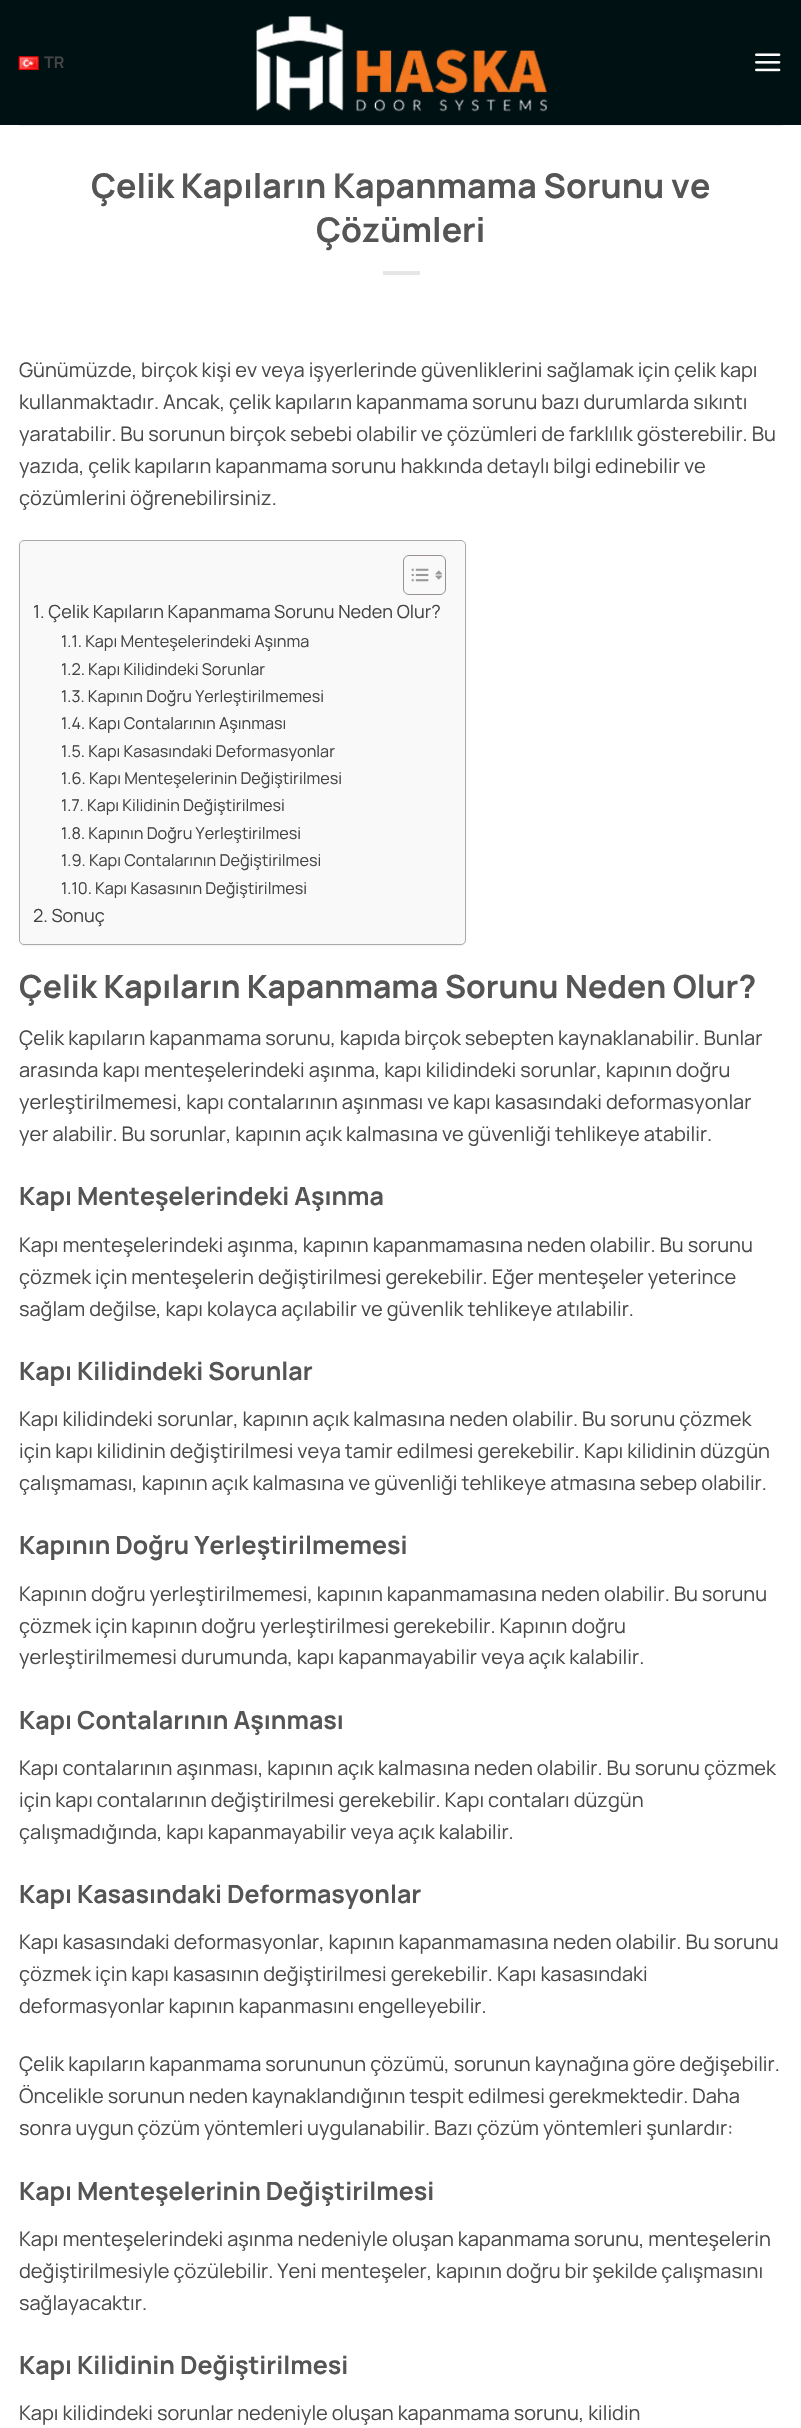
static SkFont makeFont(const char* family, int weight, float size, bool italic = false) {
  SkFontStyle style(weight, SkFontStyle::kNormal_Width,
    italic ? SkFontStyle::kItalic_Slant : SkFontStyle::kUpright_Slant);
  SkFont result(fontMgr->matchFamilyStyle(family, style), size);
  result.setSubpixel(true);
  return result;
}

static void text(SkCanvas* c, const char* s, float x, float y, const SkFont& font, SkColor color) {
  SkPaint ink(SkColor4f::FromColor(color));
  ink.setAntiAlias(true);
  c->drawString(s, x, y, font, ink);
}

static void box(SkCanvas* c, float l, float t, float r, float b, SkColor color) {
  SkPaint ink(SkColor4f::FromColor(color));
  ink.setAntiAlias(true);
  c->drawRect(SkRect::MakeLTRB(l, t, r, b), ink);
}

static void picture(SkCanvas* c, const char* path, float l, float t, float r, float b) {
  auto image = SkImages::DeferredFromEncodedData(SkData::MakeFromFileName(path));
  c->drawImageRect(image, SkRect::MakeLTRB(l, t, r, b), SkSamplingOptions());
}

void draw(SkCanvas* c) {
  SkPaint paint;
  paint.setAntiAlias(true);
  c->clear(0xffffffff);
  box(c, 0, 0, 801, 125, 0xff001114);
  picture(c, "img_01.png", 18, 56, 39, 70);
  SkFont face1 = makeFont("Manrope", 700, 16);
  text(c, "TR", 44, 68, face1, 0xff444444);
  picture(c, "img_02.png", 256, 16, 548, 112);
  picture(c, "img_03.png", 755, 53, 781, 72);
  box(c, 19, 125, 783, 126, 0xffededed);
  SkFont face2 = makeFont("Manrope", 700, 34);
  text(c, "Çelik Kapıların Kapanmama Sorunu ve", 91, 198, face2, 0xff555555);
  text(c, "Çözümleri", 316, 242, face2, 0xff555555);
  box(c, 383, 271, 420, 275, 0xffe6e6e6);
  SkFont face3 = makeFont("Manrope", 400, 20);
  text(c, "Günümüzde, birçok kişi ev veya işyerlerinde güvenliklerini sağlamak için çelik kapı", 19, 377, face3, 0xff4a4a4a);
  text(c, "kullanmaktadır. Ancak, çelik kapıların kapanmama sorunu bazı durumlarda sıkıntı", 19, 409, face3, 0xff4a4a4a);
  text(c, "yaratabilir. Bu sorunun birçok sebebi olabilir ve çözümleri de farklılık gösterebilir. Bu", 19, 441, face3, 0xff4a4a4a);
  text(c, "yazıda, çelik kapıların kapanmama sorunu hakkında detaylı bilgi edinebilir ve", 19, 473, face3, 0xff4a4a4a);
  text(c, "çözümlerini öğrenebilirsiniz.", 19, 505, face3, 0xff4a4a4a);
  paint.setColor(0x0d000000);
  paint.setMaskFilter(SkMaskFilter::MakeBlur(kNormal_SkBlurStyle, 0.5f));
  c->drawRoundRect(SkRect::MakeLTRB(19, 541, 466, 946), 5, 5, paint);
  paint.setMaskFilter(nullptr);
  paint.setColor(0xfff9f9f9);
  c->drawRoundRect(SkRect::MakeLTRB(19.5f, 540.5f, 465.5f, 944.5f), 4.5f, 4.5f, paint);
  paint.setStyle(SkPaint::kStroke_Style);
  paint.setStrokeWidth(1);
  paint.setColor(0xffaaaaaa);
  c->drawRoundRect(SkRect::MakeLTRB(19.5f, 540.5f, 465.5f, 944.5f), 4.5f, 4.5f, paint);
  paint.setColor(0xff999191);
  c->drawRoundRect(SkRect::MakeLTRB(403.5f, 555.5f, 445.5f, 594.5f), 5.5f, 5.5f, paint);
  picture(c, "img_04.png", 411, 568, 429, 582);
  picture(c, "img_05.png", 435, 570, 442, 580);
  SkFont face4 = makeFont("Manrope", 400, 18.05f);
  text(c, "1. Çelik Kapıların Kapanmama Sorunu Neden Olur?", 33, 618, face4, 0xff444444);
  SkFont face5 = makeFont("Manrope", 400, 16.25f);
  text(c, "1.1. Kapı Menteşelerindeki Aşınma", 61, 647, face5, 0xff444444);
  text(c, "1.2. Kapı Kilidindeki Sorunlar", 61, 675, face5, 0xff444444);
  text(c, "1.3. Kapının Doğru Yerleştirilmemesi", 61, 702, face5, 0xff444444);
  text(c, "1.4. Kapı Contalarının Aşınması", 61, 729, face5, 0xff444444);
  text(c, "1.5. Kapı Kasasındaki Deformasyonlar", 61, 757, face5, 0xff444444);
  text(c, "1.6. Kapı Menteşelerinin Değiştirilmesi", 61, 784, face5, 0xff444444);
  text(c, "1.7. Kapı Kilidinin Değiştirilmesi", 61, 811, face5, 0xff444444);
  text(c, "1.8. Kapının Doğru Yerleştirilmesi", 61, 839, face5, 0xff444444);
  text(c, "1.9. Kapı Contalarının Değiştirilmesi", 61, 866, face5, 0xff444444);
  text(c, "1.10. Kapı Kasasının Değiştirilmesi", 61, 894, face5, 0xff444444);
  text(c, "2. Sonuç", 33, 922, face4, 0xff444444);
  SkFont face6 = makeFont("Manrope", 700, 32);
  text(c, "Çelik Kapıların Kapanmama Sorunu Neden Olur?", 19, 998, face6, 0xff555555);
  text(c, "Çelik kapıların kapanmama sorunu, kapıda birçok sebepten kaynaklanabilir. Bunlar", 19, 1045, face3, 0xff4a4a4a);
  text(c, "arasında kapı menteşelerindeki aşınma, kapı kilidindeki sorunlar, kapının doğru", 19, 1077, face3, 0xff4a4a4a);
  text(c, "yerleştirilmemesi, kapı contalarının aşınması ve kapı kasasındaki deformasyonlar", 19, 1109, face3, 0xff4a4a4a);
  text(c, "yer alabilir. Bu sorunlar, kapının açık kalmasına ve güvenliği tehlikeye atabilir.", 19, 1141, face3, 0xff4a4a4a);
  SkFont face7 = makeFont("Manrope", 700, 25);
  text(c, "Kapı Menteşelerindeki Aşınma", 19, 1205, face7, 0xff555555);
  text(c, "Kapı menteşelerindeki aşınma, kapının kapanmamasına neden olabilir. Bu sorunu", 19, 1252, face3, 0xff4a4a4a);
  text(c, "çözmek için menteşelerin değiştirilmesi gerekebilir. Eğer menteşeler yeterince", 19, 1284, face3, 0xff4a4a4a);
  text(c, "sağlam değilse, kapı kolayca açılabilir ve güvenlik tehlikeye atılabilir.", 19, 1316, face3, 0xff4a4a4a);
  text(c, "Kapı Kilidindeki Sorunlar", 19, 1380, face7, 0xff555555);
  text(c, "Kapı kilidindeki sorunlar, kapının açık kalmasına neden olabilir. Bu sorunu çözmek", 19, 1426, face3, 0xff4a4a4a);
  text(c, "için kapı kilidinin değiştirilmesi veya tamir edilmesi gerekebilir. Kapı kilidinin düzgün", 19, 1458, face3, 0xff4a4a4a);
  text(c, "çalışmaması, kapının açık kalmasına ve güvenliği tehlikeye atmasına sebep olabilir.", 19, 1490, face3, 0xff4a4a4a);
  text(c, "Kapının Doğru Yerleştirilmemesi", 19, 1554, face7, 0xff555555);
  text(c, "Kapının doğru yerleştirilmemesi, kapının kapanmamasına neden olabilir. Bu sorunu", 19, 1601, face3, 0xff4a4a4a);
  text(c, "çözmek için kapının doğru yerleştirilmesi gerekebilir. Kapının doğru", 19, 1633, face3, 0xff4a4a4a);
  text(c, "yerleştirilmemesi durumunda, kapı kapanmayabilir veya açık kalabilir.", 19, 1664, face3, 0xff4a4a4a);
  text(c, "Kapı Contalarının Aşınması", 19, 1729, face7, 0xff555555);
  text(c, "Kapı contalarının aşınması, kapının açık kalmasına neden olabilir. Bu sorunu çözmek", 19, 1775, face3, 0xff4a4a4a);
  text(c, "için kapı contalarının değiştirilmesi gerekebilir. Kapı contaları düzgün", 19, 1807, face3, 0xff4a4a4a);
  text(c, "çalışmadığında, kapı kapanmayabilir veya açık kalabilir.", 19, 1839, face3, 0xff4a4a4a);
  text(c, "Kapı Kasasındaki Deformasyonlar", 19, 1903, face7, 0xff555555);
  text(c, "Kapı kasasındaki deformasyonlar, kapının kapanmamasına neden olabilir. Bu sorunu", 19, 1949, face3, 0xff4a4a4a);
  text(c, "çözmek için kapı kasasının değiştirilmesi gerekebilir. Kapı kasasındaki", 19, 1981, face3, 0xff4a4a4a);
  text(c, "deformasyonlar kapının kapanmasını engelleyebilir.", 19, 2013, face3, 0xff4a4a4a);
  text(c, "Çelik kapıların kapanmama sorununun çözümü, sorunun kaynağına göre değişebilir.", 19, 2071, face3, 0xff4a4a4a);
  text(c, "Öncelikle sorunun neden kaynaklandığının tespit edilmesi gerekmektedir. Daha", 19, 2103, face3, 0xff4a4a4a);
  text(c, "sonra uygun çözüm yöntemleri uygulanabilir. Bazı çözüm yöntemleri şunlardır:", 19, 2135, face3, 0xff4a4a4a);
  text(c, "Kapı Menteşelerinin Değiştirilmesi", 19, 2200, face7, 0xff555555);
  text(c, "Kapı menteşelerindeki aşınma nedeniyle oluşan kapanmama sorunu, menteşelerin", 19, 2246, face3, 0xff4a4a4a);
  text(c, "değiştirilmesiyle çözülebilir. Yeni menteşeler, kapının doğru bir şekilde çalışmasını", 19, 2278, face3, 0xff4a4a4a);
  text(c, "sağlayacaktır.", 19, 2310, face3, 0xff4a4a4a);
  text(c, "Kapı Kilidinin Değiştirilmesi", 19, 2374, face7, 0xff555555);
  text(c, "Kapı kilidindeki sorunlar nedeniyle oluşan kapanmama sorunu, kilidin", 19, 2420, face3, 0xff4a4a4a);
}
